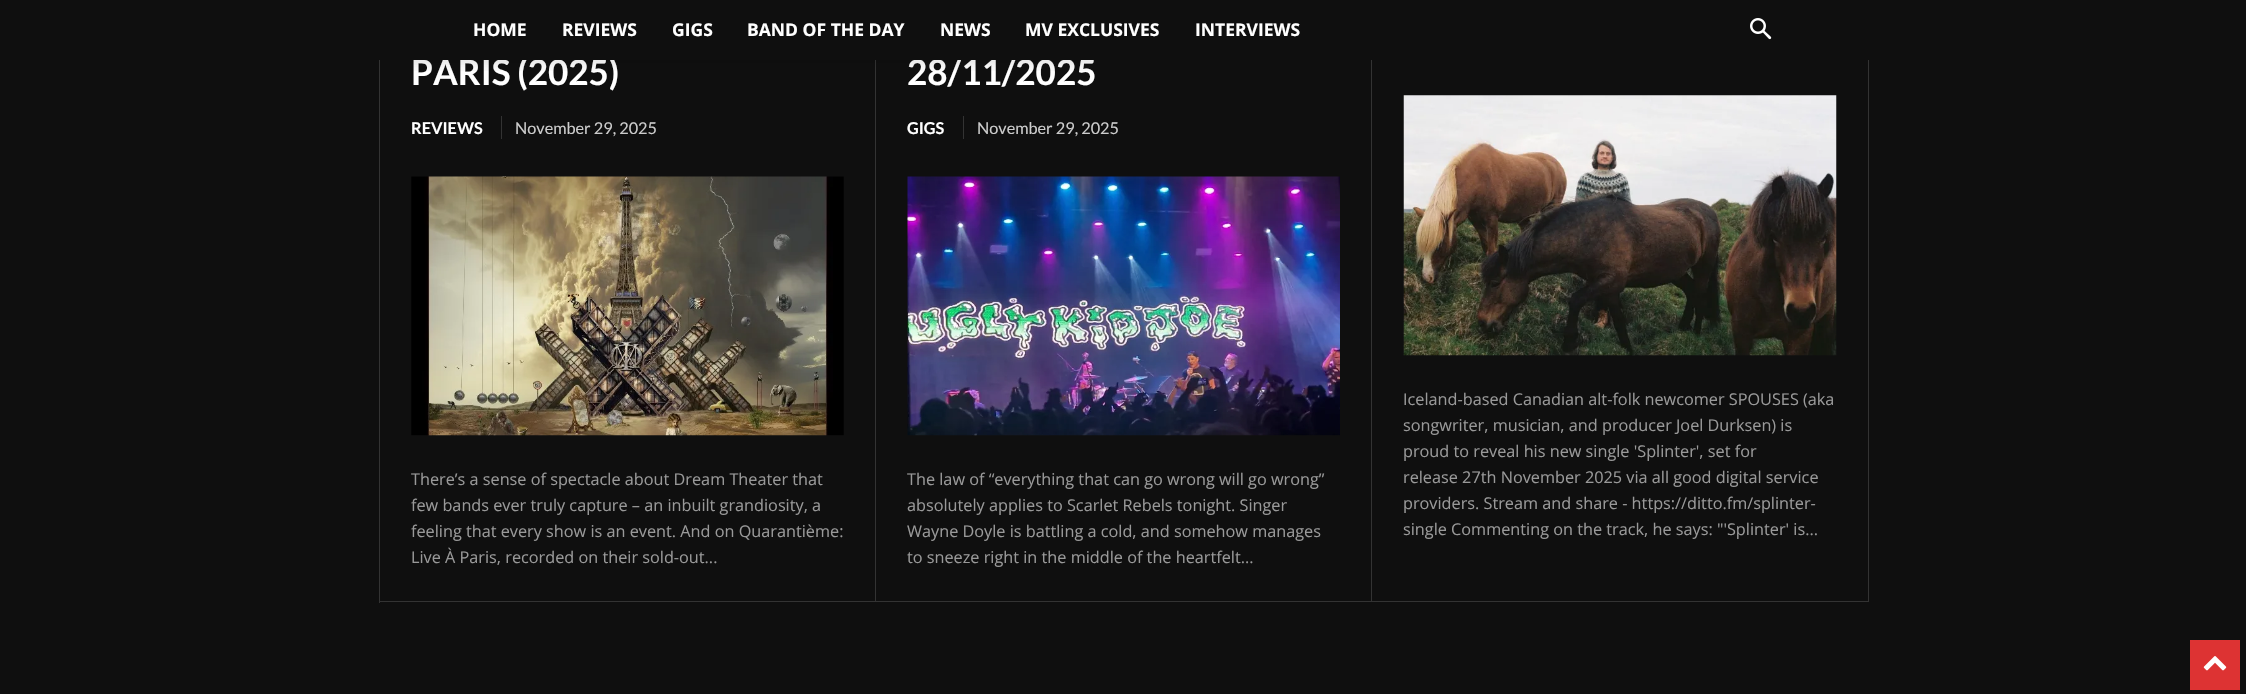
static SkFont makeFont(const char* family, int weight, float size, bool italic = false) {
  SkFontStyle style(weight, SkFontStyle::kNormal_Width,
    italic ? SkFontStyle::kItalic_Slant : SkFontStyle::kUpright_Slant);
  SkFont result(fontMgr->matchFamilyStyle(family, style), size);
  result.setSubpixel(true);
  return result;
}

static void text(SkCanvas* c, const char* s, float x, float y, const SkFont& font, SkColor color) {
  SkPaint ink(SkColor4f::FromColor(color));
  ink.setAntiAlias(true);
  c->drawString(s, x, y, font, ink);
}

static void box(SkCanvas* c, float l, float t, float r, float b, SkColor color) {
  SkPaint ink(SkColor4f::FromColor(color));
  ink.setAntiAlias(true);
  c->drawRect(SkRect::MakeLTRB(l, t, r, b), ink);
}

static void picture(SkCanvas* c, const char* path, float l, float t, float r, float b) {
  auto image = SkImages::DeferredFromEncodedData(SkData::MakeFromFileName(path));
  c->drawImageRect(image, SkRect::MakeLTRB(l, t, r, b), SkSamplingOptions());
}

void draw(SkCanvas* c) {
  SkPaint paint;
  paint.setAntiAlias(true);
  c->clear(0xff0f0f0f);
  SkFont face1 = makeFont("Lato", 700, 35);
  text(c, "PARIS (2025)", 411, 85, face1, 0xffffffff);
  text(c, "28/11/2025", 907, 85, face1, 0xffffffff);
  box(c, 413, 57, 1094, 60, 0xff0f0f0f);
  SkFont face2 = makeFont("Open Sans", 700, 17.5f);
  text(c, "HOME", 473, 36, face2, 0xffffffff);
  text(c, "REVIEWS", 562, 36, face2, 0xffffffff);
  text(c, "GIGS", 672, 36, face2, 0xffffffff);
  text(c, "BAND OF THE DAY", 747, 36, face2, 0xffffffff);
  text(c, "NEWS", 940, 36, face2, 0xffffffff);
  text(c, "MV EXCLUSIVES", 1025, 36, face2, 0xffffffff);
  text(c, "INTERVIEWS", 1195, 36, face2, 0xffffffff);
  picture(c, "img_01.png", 1750, 18, 1772, 40);
  box(c, 875, 60, 876, 601, 0xff333333);
  picture(c, "img_02.png", 413, 60, 1094, 71);
  box(c, 379, 601, 1869, 602, 0xff333333);
  box(c, 379, 60, 380, 603, 0xff333333);
  box(c, 501, 116, 502, 139, 0xff333333);
  SkFont face3 = makeFont("Lato", 700, 16.25f);
  text(c, "REVIEWS", 411, 134, face3, 0xffffffff);
  SkFont face4 = makeFont("Lato", 400, 16.25f);
  text(c, "November 29, 2025", 515, 134, face4, 0xffcccccc);
  picture(c, "img_03.png", 411, 176, 844, 436);
  SkFont face5 = makeFont("Open Sans", 400, 16.25f);
  text(c, "There’s a sense of spectacle about Dream Theater that", 411, 485, face5, 0xff999999);
  text(c, "few bands ever truly capture – an inbuilt grandiosity, a", 411, 511, face5, 0xff999999);
  text(c, "feeling that every show is an event. And on Quarantième:", 411, 537, face5, 0xff999999);
  text(c, "Live À Paris, recorded on their sold-out...", 411, 563, face5, 0xff999999);
  box(c, 1371, 60, 1372, 601, 0xff333333);
  box(c, 963, 116, 964, 139, 0xff333333);
  text(c, "GIGS", 907, 134, face3, 0xffffffff);
  text(c, "November 29, 2025", 977, 134, face4, 0xffcccccc);
  picture(c, "img_04.png", 907, 176, 1340, 436);
  text(c, "The law of “everything that can go wrong will go wrong”", 907, 485, face5, 0xff999999);
  text(c, "absolutely applies to Scarlet Rebels tonight. Singer", 907, 511, face5, 0xff999999);
  text(c, "Wayne Doyle is battling a cold, and somehow manages", 907, 537, face5, 0xff999999);
  text(c, "to sneeze right in the middle of the heartfelt...", 907, 563, face5, 0xff999999);
  box(c, 1868, 60, 1869, 601, 0xff333333);
  picture(c, "img_05.png", 1403, 95, 1837, 356);
  text(c, "Iceland-based Canadian alt-folk newcomer SPOUSES (aka", 1403, 405, face5, 0xff999999);
  text(c, "songwriter, musician, and producer Joel Durksen) is", 1403, 431, face5, 0xff999999);
  text(c, "proud to reveal his new single 'Splinter', set for", 1403, 457, face5, 0xff999999);
  text(c, "release 27th November 2025 via all good digital service", 1403, 483, face5, 0xff999999);
  text(c, "providers. Stream and share - https://ditto.fm/splinter-", 1403, 509, face5, 0xff999999);
  text(c, "single Commenting on the track, he says: \"'Splinter' is...", 1403, 535, face5, 0xff999999);
  box(c, 2190, 640, 2240, 690, 0xffdd3333);
  picture(c, "img_06.png", 2203, 656, 2227, 671);
}
